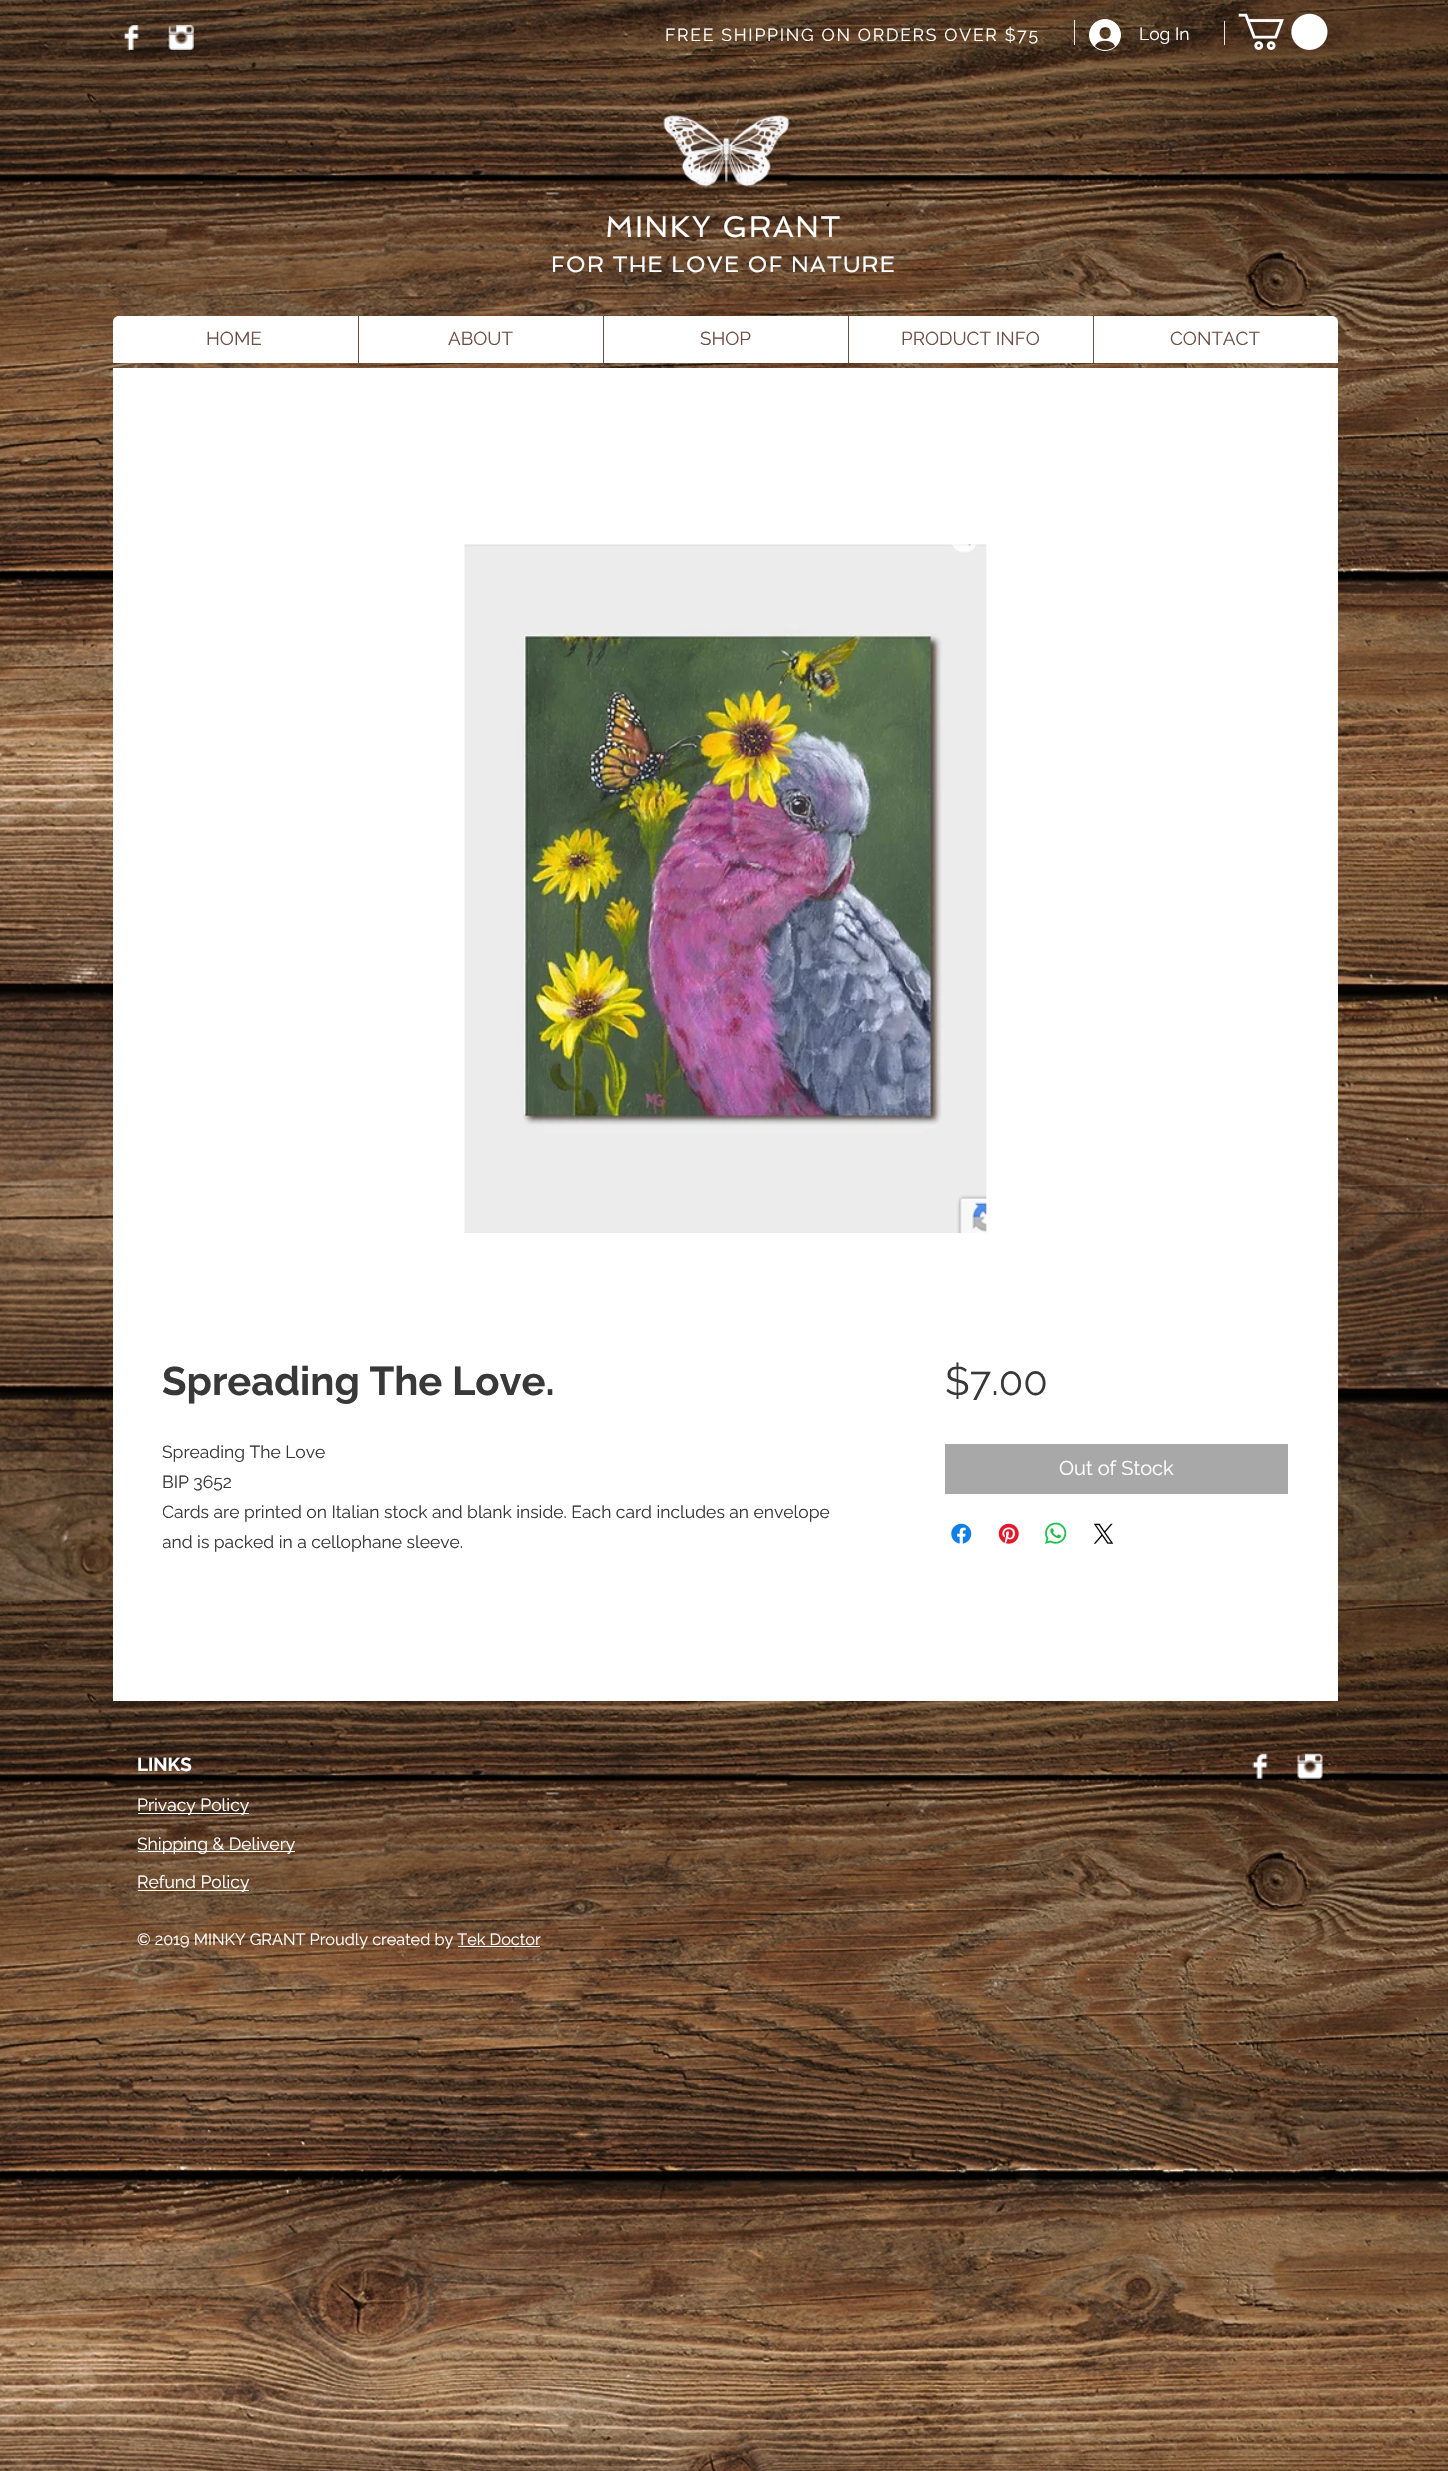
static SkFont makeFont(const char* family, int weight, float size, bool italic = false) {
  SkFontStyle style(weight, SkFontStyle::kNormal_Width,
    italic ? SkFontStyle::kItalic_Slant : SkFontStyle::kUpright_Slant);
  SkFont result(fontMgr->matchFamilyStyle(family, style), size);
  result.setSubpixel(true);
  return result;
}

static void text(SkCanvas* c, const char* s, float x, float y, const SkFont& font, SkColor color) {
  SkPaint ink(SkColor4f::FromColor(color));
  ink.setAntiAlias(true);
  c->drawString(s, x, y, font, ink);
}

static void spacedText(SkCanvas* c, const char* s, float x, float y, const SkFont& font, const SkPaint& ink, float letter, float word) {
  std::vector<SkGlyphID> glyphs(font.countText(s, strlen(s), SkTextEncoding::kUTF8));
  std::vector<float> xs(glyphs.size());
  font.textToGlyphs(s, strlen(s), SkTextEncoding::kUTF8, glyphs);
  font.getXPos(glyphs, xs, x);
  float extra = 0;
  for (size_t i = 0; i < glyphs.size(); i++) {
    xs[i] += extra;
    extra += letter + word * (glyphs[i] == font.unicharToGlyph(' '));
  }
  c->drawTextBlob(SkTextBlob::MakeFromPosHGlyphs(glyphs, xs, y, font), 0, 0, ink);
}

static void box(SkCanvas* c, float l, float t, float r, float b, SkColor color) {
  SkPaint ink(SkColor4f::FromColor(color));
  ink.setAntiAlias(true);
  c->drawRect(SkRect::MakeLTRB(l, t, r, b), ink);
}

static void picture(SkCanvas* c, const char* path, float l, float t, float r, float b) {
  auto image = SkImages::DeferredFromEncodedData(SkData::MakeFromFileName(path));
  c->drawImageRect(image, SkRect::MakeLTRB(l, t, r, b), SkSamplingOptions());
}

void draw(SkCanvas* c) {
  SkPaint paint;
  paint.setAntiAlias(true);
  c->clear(0xffffffff);
  picture(c, "img_01.png", 0, 0, 1448, 2471);
  picture(c, "img_02.png", 123, 25, 139, 50);
  picture(c, "img_03.png", 168, 25, 194, 50);
  SkFont face1 = makeFont("Raleway", 400, 17.5f);
  paint.setColor(0xffffffff);
  spacedText(c, "FREE SHIPPING ON ORDERS OVER $75", 665, 41, face1, paint, 1.75f, 0);
  box(c, 1074, 20, 1075, 45, 0xffe9e9e9);
  picture(c, "img_04.png", 1089, 19, 1121, 51);
  text(c, "Log In", 1139, 40, face1, 0xffffffff);
  box(c, 1224, 21, 1225, 45, 0xffe9e9e9);
  picture(c, "img_05.png", 1238, 13, 1328, 50);
  picture(c, "img_06.png", 663, 115, 790, 187);
  SkFont face2 = makeFont("Spinnaker", 400, 30);
  spacedText(c, "MINKY GRANT", 605, 237, face2, paint, 1.5f, 0);
  SkFont face3 = makeFont("Spinnaker", 400, 22.5f);
  spacedText(c, "FOR THE LOVE OF NATURE", 551, 272, face3, paint, 1.1f, 0);
  c->drawPath(SkPathBuilder().moveTo(119, 316).lineTo(1332, 316).cubicTo(1335.5f, 316, 1338, 318.5f, 1338, 322).lineTo(1338, 363).lineTo(113, 363).lineTo(113, 322).cubicTo(113, 318.5f, 115.5f, 316, 119, 316).close().detach(), paint);
  SkFont face4 = makeFont("Raleway", 400, 18.75f);
  text(c, "HOME", 206, 345, face4, 0xff6e4e44);
  box(c, 358, 316, 359, 363, 0xff6e4e44);
  text(c, "ABOUT", 448, 345, face4, 0xff6e4e44);
  box(c, 603, 316, 604, 363, 0xff6e4e44);
  text(c, "SHOP", 700, 345, face4, 0xff6e4e44);
  box(c, 848, 316, 849, 363, 0xff6e4e44);
  text(c, "PRODUCT INFO", 901, 345, face4, 0xff6e4e44);
  box(c, 1093, 316, 1094, 363, 0xff6e4e44);
  text(c, "CONTACT", 1170, 345, face4, 0xff6e4e44);
  box(c, 113, 368, 1338, 1701, 0xffffffff);
  picture(c, "img_07.png", 464, 544, 987, 1233);
  SkFont face5 = makeFont("Raleway", 700, 40);
  text(c, "Spreading The Love.", 162, 1395, face5, 0xff383838);
  text(c, "Spreading The Love", 162, 1458, face1, 0xff383838);
  text(c, "BIP 3652", 162, 1488, face1, 0xff383838);
  c->save();
  c->clipRect(SkRect::MakeLTRB(163, 1438, 845, 1558));
  text(c, "Cards are printed on Italian stock and blank inside. Each card includes an envelope", 162, 1518, face1, 0xff383838);
  text(c, "and is packed in a cellophane sleeve.", 162, 1548, face1, 0xff383838);
  c->restore();
  SkFont face6 = makeFont("Raleway", 400, 40);
  text(c, "$7.00", 945, 1395, face6, 0xff383838);
  box(c, 945, 1444, 1288, 1494, 0xffa8a8a8);
  SkFont face7 = makeFont("Raleway", 400, 20);
  text(c, "Out of Stock", 1059, 1475, face7, 0xffffffff);
  picture(c, "img_08.png", 951, 1523, 972, 1544);
  picture(c, "img_09.png", 998, 1523, 1019, 1544);
  picture(c, "img_10.png", 1045, 1522, 1067, 1544);
  picture(c, "img_11.png", 1093, 1523, 1114, 1544);
  SkFont face8 = makeFont("Raleway", 700, 18.75f);
  text(c, "LINKS", 137, 1771, face8, 0xffffffff);
  box(c, 138, 1813, 249, 1814, 0xffffffff);
  text(c, "Privacy Policy", 137, 1811, face1, 0xffffffff);
  box(c, 138, 1851, 295, 1852, 0xffffffff);
  text(c, "Shipping & Delivery", 137, 1850, face1, 0xffffffff);
  box(c, 138, 1890, 249, 1891, 0xffffffff);
  text(c, "Refund Policy", 137, 1888, face1, 0xffffffff);
  SkFont face9 = makeFont("Raleway", 400, 16.25f);
  text(c, "© 2019 MINKY GRANT Proudly created by Tek Doctor", 137, 1945, face9, 0xffffffff);
  box(c, 458, 1946, 540, 1947, 0xffffffff);
  picture(c, "img_12.png", 1252, 1753, 1268, 1779);
  picture(c, "img_13.png", 1297, 1753, 1323, 1779);
}
